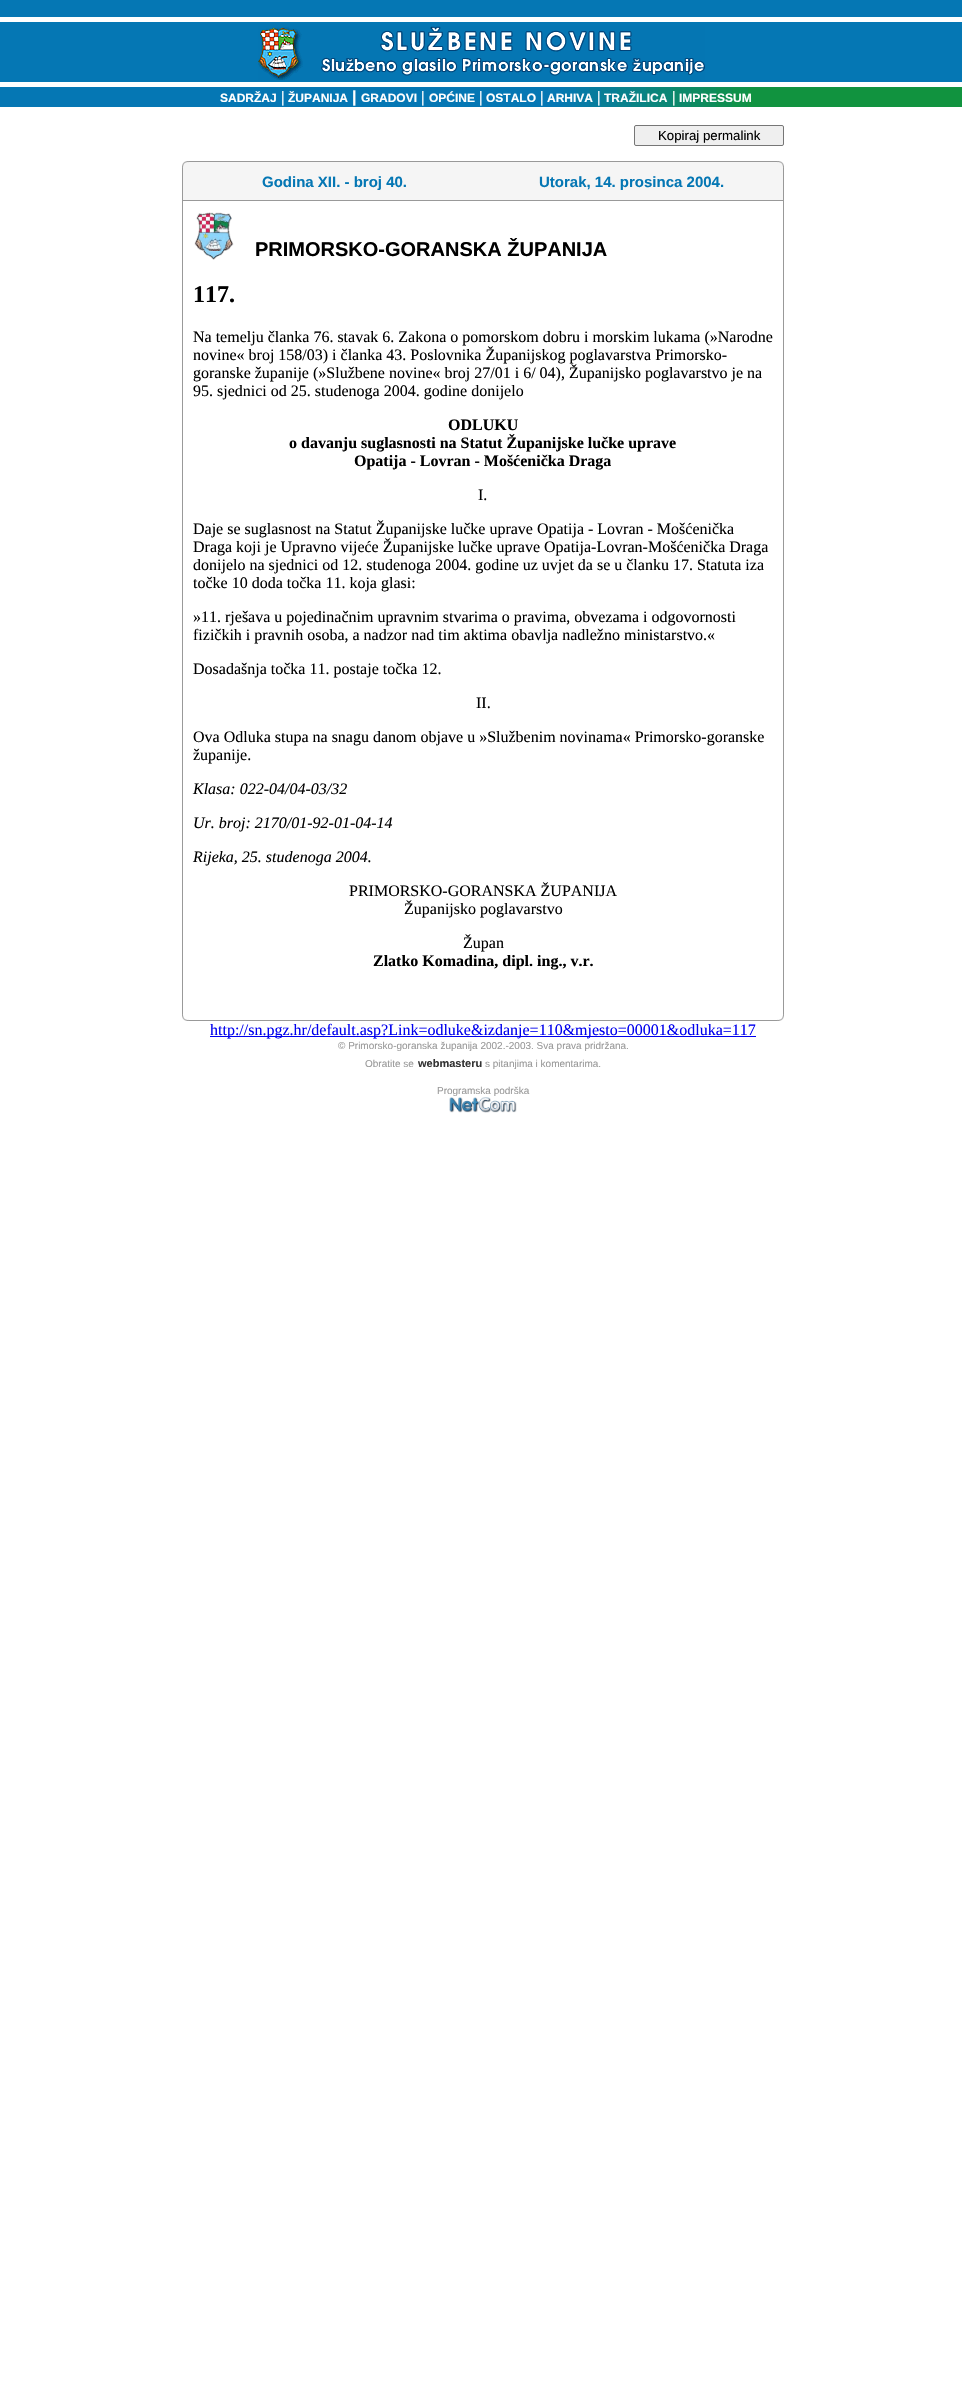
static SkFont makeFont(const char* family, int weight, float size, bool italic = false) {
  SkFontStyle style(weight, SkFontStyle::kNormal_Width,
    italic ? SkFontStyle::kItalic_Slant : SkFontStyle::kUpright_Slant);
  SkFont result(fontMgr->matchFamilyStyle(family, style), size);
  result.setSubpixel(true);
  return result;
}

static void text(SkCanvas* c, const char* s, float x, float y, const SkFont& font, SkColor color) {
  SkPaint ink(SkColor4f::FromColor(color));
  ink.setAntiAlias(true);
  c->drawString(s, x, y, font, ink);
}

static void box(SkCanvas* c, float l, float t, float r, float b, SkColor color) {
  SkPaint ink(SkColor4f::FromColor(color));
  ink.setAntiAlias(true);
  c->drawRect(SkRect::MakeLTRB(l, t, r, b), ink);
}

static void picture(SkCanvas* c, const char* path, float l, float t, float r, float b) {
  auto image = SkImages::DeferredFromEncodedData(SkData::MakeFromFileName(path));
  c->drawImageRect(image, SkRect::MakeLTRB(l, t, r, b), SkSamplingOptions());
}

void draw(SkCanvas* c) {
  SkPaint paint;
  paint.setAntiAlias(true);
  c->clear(0xffffffff);
  picture(c, "img_01.png", 0, 0, 962, 82);
  picture(c, "img_02.png", 258, 26, 705, 80);
  box(c, 0, 87, 192, 107, 0xff0577b4);
  picture(c, "img_03.png", 192, 87, 770, 107);
  SkFont face1 = makeFont("Liberation Sans", 700, 12);
  text(c, "SADRŽAJ", 220, 102, face1, 0xffffffff);
  SkFont face2 = makeFont("Liberation Serif", 700, 16);
  text(c, "|", 281, 102, face2, 0xffffffff);
  text(c, "ŽUPANIJA", 288, 102, face1, 0xffffffff);
  SkFont face3 = makeFont("Liberation Sans", 700, 16);
  text(c, "|", 352, 102, face3, 0xffffffff);
  text(c, "GRADOVI", 361, 102, face1, 0xffffffff);
  text(c, "|", 421, 102, face2, 0xffffffff);
  text(c, "OPĆINE", 429, 102, face1, 0xffffffff);
  text(c, "|", 479, 102, face2, 0xffffffff);
  text(c, "OSTALO", 486, 102, face1, 0xffffffff);
  text(c, "|", 540, 102, face2, 0xffffffff);
  text(c, "ARHIVA", 547, 102, face1, 0xffffffff);
  text(c, "|", 597, 102, face2, 0xffffffff);
  text(c, "TRAŽILICA", 604, 102, face1, 0xffffffff);
  text(c, "|", 672, 102, face2, 0xffffffff);
  text(c, "IMPRESSUM", 679, 102, face1, 0xffffffff);
  box(c, 770, 87, 962, 107, 0xff11933f);
  paint.setColor(0xffefefef);
  c->drawRoundRect(SkRect::MakeLTRB(634.5f, 125.5f, 783.5f, 145.5f), 1.5f, 1.5f, paint);
  paint.setStyle(SkPaint::kStroke_Style);
  paint.setStrokeWidth(1);
  paint.setColor(0xff767676);
  c->drawRoundRect(SkRect::MakeLTRB(634.5f, 125.5f, 783.5f, 145.5f), 1.5f, 1.5f, paint);
  SkFont face4 = makeFont("Liberation Sans", 400, 13.25f);
  text(c, "Kopiraj permalink", 658, 140, face4, 0xff000000);
  picture(c, "img_04.png", 182, 161, 189, 168);
  box(c, 189, 161, 777, 162, 0xff999999);
  picture(c, "img_05.png", 777, 161, 784, 168);
  box(c, 189, 162, 777, 168, 0xfff5f5f5);
  box(c, 182, 168, 183, 200, 0xff999999);
  box(c, 183, 168, 783, 200, 0xfff5f5f5);
  SkFont face5 = makeFont("Liberation Sans", 700, 15);
  text(c, "Godina XII. - broj 40.", 262, 187, face5, 0xff0577b4);
  text(c, "Utorak, 14. prosinca 2004.", 539, 187, face5, 0xff0577b4);
  box(c, 783, 168, 784, 200, 0xff999999);
  box(c, 182, 200, 784, 201, 0xff999999);
  box(c, 182, 201, 183, 1014, 0xff999999);
  picture(c, "img_06.png", 194, 212, 234, 260);
  SkFont face6 = makeFont("Liberation Sans", 700, 20);
  text(c, "PRIMORSKO-GORANSKA ŽUPANIJA", 255, 256, face6, 0xff000000);
  SkFont face7 = makeFont("Liberation Serif", 700, 24);
  text(c, "117.", 193, 302, face7, 0xff000000);
  SkFont face8 = makeFont("Liberation Serif", 400, 16);
  text(c, "Na temelju članka 76. stavak 6. Zakona o pomorskom dobru i morskim lukama (»Narodne", 193, 342, face8, 0xff000000);
  text(c, "novine« broj 158/03) i članka 43. Poslovnika Županijskog poglavarstva Primorsko-", 193, 360, face8, 0xff000000);
  text(c, "goranske županije (»Službene novine« broj 27/01 i 6/ 04), Županijsko poglavarstvo je na", 193, 378, face8, 0xff000000);
  text(c, "95. sjednici od 25. studenoga 2004. godine donijelo", 193, 396, face8, 0xff000000);
  text(c, "ODLUKU", 448, 430, face2, 0xff000000);
  text(c, "o davanju suglasnosti na Statut Županijske lučke uprave", 289, 448, face2, 0xff000000);
  text(c, "Opatija - Lovran - Mošćenička Draga", 354, 466, face2, 0xff000000);
  text(c, "I.", 478, 500, face8, 0xff000000);
  text(c, "Daje se suglasnost na Statut Županijske lučke uprave Opatija - Lovran - Mošćenička", 193, 534, face8, 0xff000000);
  text(c, "Draga koji je Upravno vijeće Županijske lučke uprave Opatija-Lovran-Mošćenička Draga", 193, 552, face8, 0xff000000);
  text(c, "donijelo na sjednici od 12. studenoga 2004. godine uz uvjet da se u članku 17. Statuta iza", 193, 570, face8, 0xff000000);
  text(c, "točke 10 doda točka 11. koja glasi:", 193, 588, face8, 0xff000000);
  text(c, "»11. rješava u pojedinačnim upravnim stvarima o pravima, obvezama i odgovornosti", 193, 622, face8, 0xff000000);
  text(c, "fizičkih i pravnih osoba, a nadzor nad tim aktima obavlja nadležno ministarstvo.«", 193, 640, face8, 0xff000000);
  text(c, "Dosadašnja točka 11. postaje točka 12.", 193, 674, face8, 0xff000000);
  text(c, "II.", 476, 708, face8, 0xff000000);
  text(c, "Ova Odluka stupa na snagu danom objave u »Službenim novinama« Primorsko-goranske", 193, 742, face8, 0xff000000);
  text(c, "županije.", 193, 760, face8, 0xff000000);
  SkFont face9 = makeFont("Liberation Serif", 400, 16, true);
  text(c, "Klasa: 022-04/04-03/32", 193, 794, face9, 0xff000000);
  text(c, "Ur. broj: 2170/01-92-01-04-14", 193, 828, face9, 0xff000000);
  text(c, "Rijeka, 25. studenoga 2004.", 193, 862, face9, 0xff000000);
  text(c, "PRIMORSKO-GORANSKA ŽUPANIJA", 349, 896, face8, 0xff000000);
  text(c, "Županijsko poglavarstvo", 404, 914, face8, 0xff000000);
  text(c, "Župan", 463, 948, face8, 0xff000000);
  text(c, "Zlatko Komadina, dipl. ing., v.r.", 373, 966, face2, 0xff000000);
  box(c, 783, 201, 784, 1014, 0xff999999);
  picture(c, "img_07.png", 182, 1014, 189, 1021);
  picture(c, "img_08.png", 777, 1014, 784, 1021);
  box(c, 189, 1020, 777, 1021, 0xff999999);
  box(c, 210, 1036, 756, 1037, 0xff0000ee);
  text(c, "http://sn.pgz.hr/default.asp?Link=odluke&izdanje=110&mjesto=00001&odluka=117", 210, 1035, face8, 0xff0000ee);
  SkFont face10 = makeFont("Liberation Sans", 400, 10);
  text(c, "© Primorsko-goranska županija 2002.-2003. Sva prava pridržana.", 338, 1049, face10, 0xff999999);
  text(c, "Obratite se", 365, 1067, face10, 0xff999999);
  SkFont face11 = makeFont("Liberation Sans", 700, 11);
  text(c, "webmasteru", 418, 1067, face11, 0xff333333);
  text(c, "s pitanjima i komentarima.", 485, 1067, face10, 0xff999999);
  text(c, "Programska podrška", 437, 1094, face10, 0xff999999);
  picture(c, "img_09.png", 449, 1097, 517, 1113);
}
